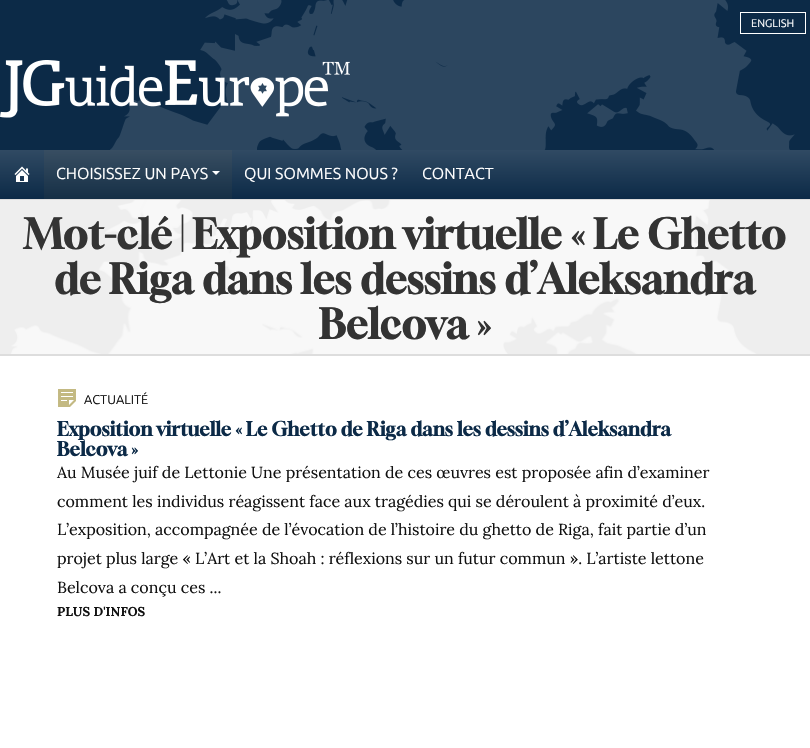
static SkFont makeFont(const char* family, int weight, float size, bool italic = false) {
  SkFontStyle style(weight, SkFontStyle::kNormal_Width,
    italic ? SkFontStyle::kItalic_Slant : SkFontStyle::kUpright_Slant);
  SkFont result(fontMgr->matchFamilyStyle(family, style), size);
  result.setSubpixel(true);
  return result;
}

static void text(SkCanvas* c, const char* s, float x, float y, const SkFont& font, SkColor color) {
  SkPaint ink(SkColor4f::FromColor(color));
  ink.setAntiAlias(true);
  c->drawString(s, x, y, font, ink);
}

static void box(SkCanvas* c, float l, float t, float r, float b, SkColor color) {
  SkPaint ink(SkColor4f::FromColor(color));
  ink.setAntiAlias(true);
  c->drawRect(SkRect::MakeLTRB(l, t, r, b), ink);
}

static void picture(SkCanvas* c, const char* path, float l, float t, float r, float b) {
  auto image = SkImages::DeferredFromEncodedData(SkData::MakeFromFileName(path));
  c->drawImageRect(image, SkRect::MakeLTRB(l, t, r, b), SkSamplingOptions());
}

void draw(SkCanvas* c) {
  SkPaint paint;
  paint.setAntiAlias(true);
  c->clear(0xffffffff);
  box(c, 0, 0, 810, 150, 0xff0c2a47);
  picture(c, "img_01.png", 110, 0, 795, 150);
  paint.setStyle(SkPaint::kStroke_Style);
  paint.setStrokeWidth(1);
  paint.setColor(0xffffffff);
  c->drawRect(SkRect::MakeLTRB(740.5f, 12.5f, 805.5f, 33.5f), paint);
  SkFont face1 = makeFont("Ubuntu Sans", 400, 11);
  text(c, "ENGLISH", 751, 27, face1, 0xffffffff);
  picture(c, "img_02.png", 0, 60, 350, 118);
  paint.setStyle(SkPaint::kFill_Style);
  {
    const SkColor colors[] = {0xff304a63, 0xff0c2a47};
    const float stops[] = {0, 1};
    const SkPoint ends[] = {{405, 150}, {405, 199}};
    paint.setShader(SkGradientShader::MakeLinear(ends, colors, stops, 2, SkTileMode::kClamp));
    paint.setAlpha(255);
  }
  c->drawRect(SkRect::MakeLTRB(0, 150, 810, 199), paint);
  picture(c, "img_03.png", 14, 166, 30, 182);
  {
    const SkColor colors[] = {0xff384e62, 0xff152f46};
    const float stops[] = {0, 1};
    const SkPoint ends[] = {{138, 150}, {138, 199}};
    paint.setShader(SkGradientShader::MakeLinear(ends, colors, stops, 2, SkTileMode::kClamp));
    paint.setAlpha(255);
  }
  c->drawRect(SkRect::MakeLTRB(44, 150, 232, 199), paint);
  SkFont face2 = makeFont("Ubuntu Sans", 400, 16);
  text(c, "CHOISISSEZ UN PAYS", 56, 179, face2, 0xffffffff);
  paint.setShader(nullptr);
  paint.setColor(0xffffffff);
  c->drawPath(SkPathBuilder().moveTo(212, 171).lineTo(220, 171).lineTo(216, 175).close().detach(), paint);
  text(c, "QUI SOMMES NOUS ?", 244, 179, face2, 0xffffffff);
  text(c, "CONTACT", 422, 179, face2, 0xffffffff);
  box(c, 0, 200, 810, 354, 0xffeeeeee);
  picture(c, "img_04.png", 10, 200, 757, 354);
  box(c, 0, 199, 810, 200, 0xffdddddd);
  box(c, 0, 354, 810, 356, 0xffdddddd);
  SkFont face3 = makeFont("Gloock", 700, 40.75f);
  text(c, "Mot-clé | Exposition virtuelle « Le Ghetto", 24, 249, face3, 0xff333333);
  text(c, "de Riga dans les dessins d’Aleksandra", 54, 294, face3, 0xff333333);
  text(c, "Belcova »", 319, 339, face3, 0xff333333);
  picture(c, "img_05.png", 58, 389, 76, 407);
  SkFont face4 = makeFont("Ubuntu Sans", 400, 12.75f);
  text(c, "ACTUALITÉ", 84, 404, face4, 0xff111111);
  SkFont face5 = makeFont("Gloock", 700, 19.2f);
  text(c, "Exposition virtuelle « Le Ghetto de Riga dans les dessins d’Aleksandra", 57, 436, face5, 0xff0c2a47);
  text(c, "Belcova »", 57, 456, face5, 0xff0c2a47);
  SkFont face6 = makeFont("Lora", 400, 16);
  text(c, "Au Musée juif de Lettonie Une présentation de ces œuvres est proposée afin d’examiner", 57, 478, face6, 0xff111111);
  text(c, "comment les individus réagissent face aux tragédies qui se déroulent à proximité d’eux.", 57, 507, face6, 0xff111111);
  text(c, "L’exposition, accompagnée de l’évocation de l’histoire du ghetto de Riga, fait partie d’un", 57, 535, face6, 0xff111111);
  text(c, "projet plus large « L’Art et la Shoah : réflexions sur un futur commun ». L’artiste lettone", 57, 564, face6, 0xff111111);
  text(c, "Belcova a conçu ces ...", 57, 593, face6, 0xff111111);
  SkFont face7 = makeFont("Lora", 700, 12.75f);
  text(c, "PLUS D'INFOS", 57, 616, face7, 0xff111111);
}
